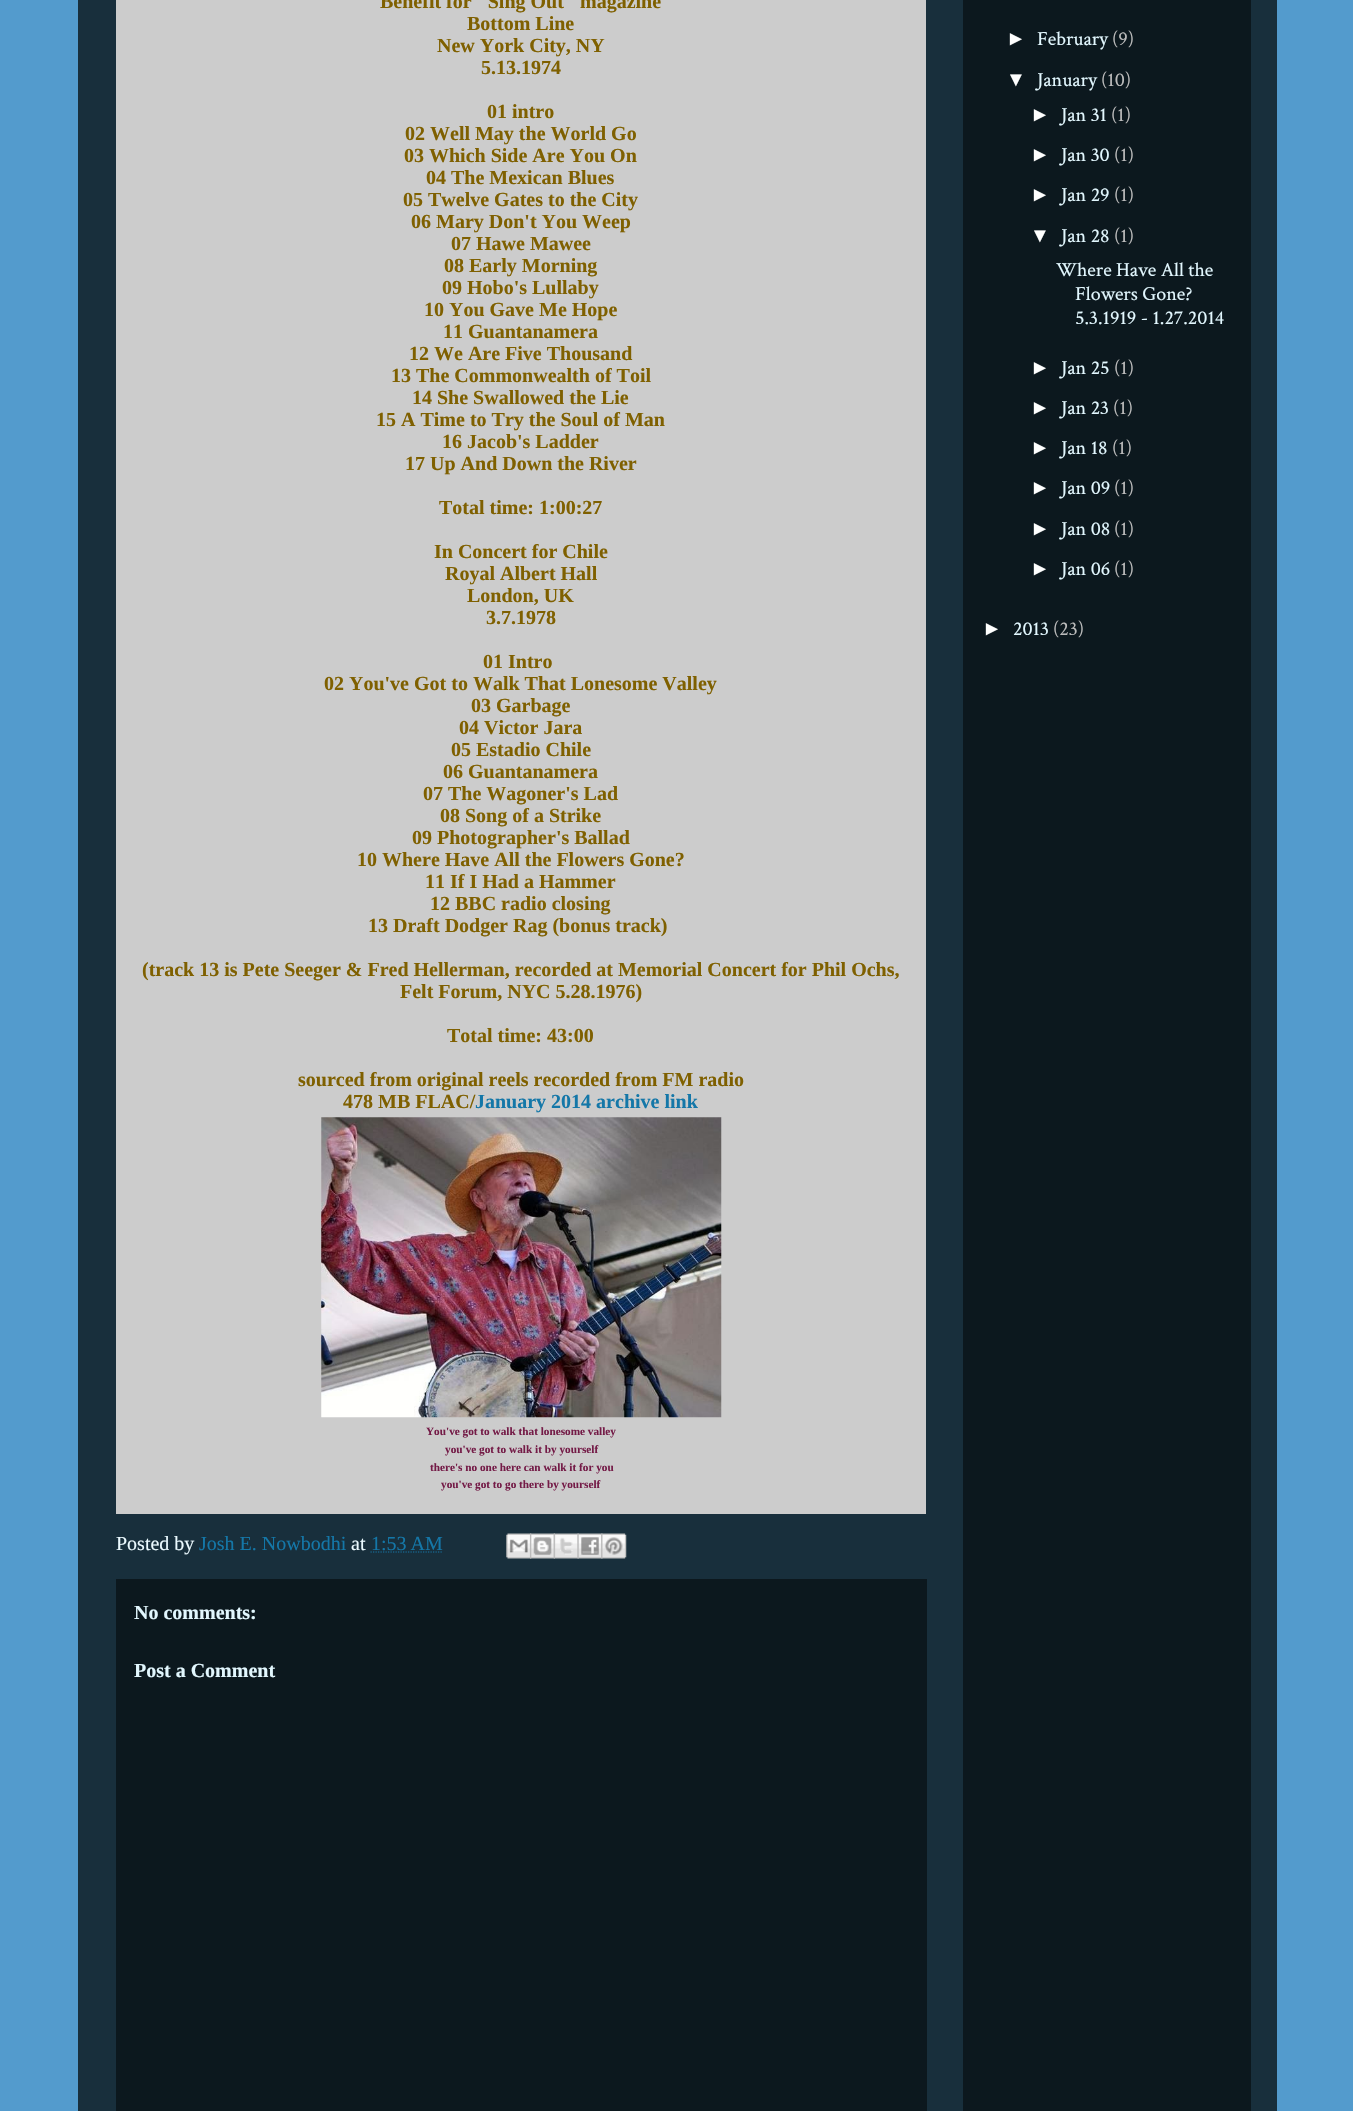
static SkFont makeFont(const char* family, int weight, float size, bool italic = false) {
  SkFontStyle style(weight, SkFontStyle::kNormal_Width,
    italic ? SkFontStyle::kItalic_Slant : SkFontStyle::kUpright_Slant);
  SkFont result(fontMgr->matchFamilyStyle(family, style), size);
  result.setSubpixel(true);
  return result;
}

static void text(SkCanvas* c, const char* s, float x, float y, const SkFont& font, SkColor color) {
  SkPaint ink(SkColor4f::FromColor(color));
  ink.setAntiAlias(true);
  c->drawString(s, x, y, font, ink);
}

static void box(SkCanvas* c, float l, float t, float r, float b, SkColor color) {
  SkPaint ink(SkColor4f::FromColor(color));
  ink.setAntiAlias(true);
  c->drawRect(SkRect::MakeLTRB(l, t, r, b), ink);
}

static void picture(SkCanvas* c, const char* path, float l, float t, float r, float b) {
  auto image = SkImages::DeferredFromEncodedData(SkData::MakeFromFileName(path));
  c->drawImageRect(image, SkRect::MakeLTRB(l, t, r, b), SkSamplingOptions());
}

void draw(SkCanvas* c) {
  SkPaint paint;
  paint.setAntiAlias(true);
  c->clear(0xff539bcd);
  box(c, 78, 0, 1277, 2111, 0xff182f3c);
  box(c, 116, 0, 926, 1514, 0xffcccccc);
  SkFont face1 = makeFont("Liberation Serif", 700, 20);
  text(c, "Benefit for \"Sing Out\" magazine", 380, 8, face1, 0xff7f6000);
  text(c, "Bottom Line", 467, 30, face1, 0xff7f6000);
  text(c, "New York City, NY", 437, 52, face1, 0xff7f6000);
  text(c, "5.13.1974", 481, 74, face1, 0xff7f6000);
  text(c, "01 intro", 487, 118, face1, 0xff7f6000);
  text(c, "02 Well May the World Go", 405, 140, face1, 0xff7f6000);
  text(c, "03 Which Side Are You On", 404, 162, face1, 0xff7f6000);
  text(c, "04 The Mexican Blues", 426, 184, face1, 0xff7f6000);
  text(c, "05 Twelve Gates to the City", 403, 206, face1, 0xff7f6000);
  text(c, "06 Mary Don't You Weep", 411, 228, face1, 0xff7f6000);
  text(c, "07 Hawe Mawee", 451, 250, face1, 0xff7f6000);
  text(c, "08 Early Morning", 444, 272, face1, 0xff7f6000);
  text(c, "09 Hobo's Lullaby", 442, 294, face1, 0xff7f6000);
  text(c, "10 You Gave Me Hope", 424, 316, face1, 0xff7f6000);
  text(c, "11 Guantanamera", 443, 338, face1, 0xff7f6000);
  text(c, "12 We Are Five Thousand", 409, 360, face1, 0xff7f6000);
  text(c, "13 The Commonwealth of Toil", 391, 382, face1, 0xff7f6000);
  text(c, "14 She Swallowed the Lie", 412, 404, face1, 0xff7f6000);
  text(c, "15 A Time to Try the Soul of Man", 376, 426, face1, 0xff7f6000);
  text(c, "16 Jacob's Ladder", 442, 448, face1, 0xff7f6000);
  text(c, "17 Up And Down the River", 405, 470, face1, 0xff7f6000);
  text(c, "Total time: 1:00:27", 439, 514, face1, 0xff7f6000);
  text(c, "In Concert for Chile", 434, 558, face1, 0xff7f6000);
  text(c, "Royal Albert Hall", 445, 580, face1, 0xff7f6000);
  text(c, "London, UK", 467, 602, face1, 0xff7f6000);
  text(c, "3.7.1978", 486, 624, face1, 0xff7f6000);
  text(c, "01 Intro", 483, 668, face1, 0xff7f6000);
  text(c, "02 You've Got to Walk That Lonesome Valley", 324, 690, face1, 0xff7f6000);
  text(c, "03 Garbage", 471, 712, face1, 0xff7f6000);
  text(c, "04 Victor Jara", 459, 734, face1, 0xff7f6000);
  text(c, "05 Estadio Chile", 451, 756, face1, 0xff7f6000);
  text(c, "06 Guantanamera", 443, 778, face1, 0xff7f6000);
  text(c, "07 The Wagoner's Lad", 423, 800, face1, 0xff7f6000);
  text(c, "08 Song of a Strike", 440, 822, face1, 0xff7f6000);
  text(c, "09 Photographer's Ballad", 412, 844, face1, 0xff7f6000);
  text(c, "10 Where Have All the Flowers Gone?", 357, 866, face1, 0xff7f6000);
  text(c, "11 If I Had a Hammer", 425, 888, face1, 0xff7f6000);
  text(c, "12 BBC radio closing", 430, 910, face1, 0xff7f6000);
  text(c, "13 Draft Dodger Rag (bonus track)", 368, 932, face1, 0xff7f6000);
  text(c, "(track 13 is Pete Seeger & Fred Hellerman, recorded at Memorial Concert for Phil Ochs,", 142, 976, face1, 0xff7f6000);
  text(c, "Felt Forum, NYC 5.28.1976)", 400, 998, face1, 0xff7f6000);
  text(c, "Total time: 43:00", 447, 1042, face1, 0xff7f6000);
  text(c, "sourced from original reels recorded from FM radio", 298, 1086, face1, 0xff7f6000);
  text(c, "478 MB FLAC/", 343, 1108, face1, 0xff7f6000);
  text(c, "January 2014 archive link", 475, 1108, face1, 0xff1477a8);
  picture(c, "img_01.png", 321, 1117, 722, 1418);
  SkFont face2 = makeFont("Liberation Serif", 700, 11.25f);
  text(c, "You've got to walk that lonesome valley", 426, 1435, face2, 0xff741b47);
  text(c, "you've got to walk it by yourself", 445, 1453, face2, 0xff741b47);
  text(c, "there's no one here can walk it for you", 430, 1471, face2, 0xff741b47);
  text(c, "you've got to go there by yourself", 441, 1488, face2, 0xff741b47);
  SkFont face3 = makeFont("Liberation Serif", 400, 20);
  text(c, "Posted by", 116, 1550, face3, 0xffebfaff);
  text(c, "Josh E. Nowbodhi", 199, 1550, face3, 0xff1477a8);
  text(c, "at", 351, 1550, face3, 0xffebfaff);
  text(c, "1:53 AM", 371, 1550, face3, 0xff1477a8);
  paint.setStyle(SkPaint::kStroke_Style);
  paint.setStrokeWidth(1.2f);
  paint.setColor(0xff1477a8);
  paint.setPathEffect(SkDashPathEffect::Make({{1.25f, 1.25f}}, 0));
  c->drawPath(SkPathBuilder().moveTo(370.5f, 1552).lineTo(442.5f, 1552).detach(), paint);
  paint.setPathEffect(nullptr);
  picture(c, "img_02.png", 506, 1533, 532, 1559);
  picture(c, "img_03.png", 530, 1533, 555, 1559);
  picture(c, "img_04.png", 553, 1533, 579, 1559);
  picture(c, "img_05.png", 577, 1533, 603, 1559);
  picture(c, "img_06.png", 601, 1533, 627, 1559);
  box(c, 116, 1579, 927, 2111, 0xff0c181e);
  text(c, "No comments:", 134, 1619, face1, 0xffe2f7fe);
  text(c, "Post a Comment", 134, 1677, face1, 0xffe2f7fe);
  box(c, 963, 0, 1251, 2111, 0xff0c181e);
  SkFont face4 = makeFont("Liberation Sans", 400, 20);
  text(c, "►", 1006, 45, face4, 0xffffffff);
  SkFont face5 = makeFont("Crimson Text", 400, 20);
  text(c, "February", 1037, 45, face5, 0xffe2f7fe);
  text(c, "(9)", 1112, 45, face5, 0xffbbbbbb);
  text(c, "▼", 1006, 86, face4, 0xffffffff);
  text(c, "January", 1037, 86, face5, 0xffe2f7fe);
  text(c, "(10)", 1101, 86, face5, 0xffbbbbbb);
  text(c, "►", 1030, 121, face4, 0xffffffff);
  text(c, "Jan 31", 1061, 121, face5, 0xffe2f7fe);
  text(c, "(1)", 1111, 121, face5, 0xffbbbbbb);
  text(c, "►", 1030, 161, face4, 0xffffffff);
  text(c, "Jan 30", 1061, 161, face5, 0xffe2f7fe);
  text(c, "(1)", 1114, 161, face5, 0xffbbbbbb);
  text(c, "►", 1030, 201, face4, 0xffffffff);
  text(c, "Jan 29", 1061, 201, face5, 0xffe2f7fe);
  text(c, "(1)", 1114, 201, face5, 0xffbbbbbb);
  text(c, "▼", 1030, 242, face4, 0xffffffff);
  text(c, "Jan 28", 1061, 242, face5, 0xffe2f7fe);
  text(c, "(1)", 1114, 242, face5, 0xffbbbbbb);
  text(c, "Where Have All the", 1056, 276, face5, 0xffe2f7fe);
  text(c, "Flowers Gone?", 1075, 300, face5, 0xffe2f7fe);
  text(c, "5.3.1919 - 1.27.2014", 1075, 324, face5, 0xffe2f7fe);
  text(c, "►", 1030, 374, face4, 0xffffffff);
  text(c, "Jan 25", 1061, 374, face5, 0xffe2f7fe);
  text(c, "(1)", 1114, 374, face5, 0xffbbbbbb);
  text(c, "►", 1030, 414, face4, 0xffffffff);
  text(c, "Jan 23", 1061, 414, face5, 0xffe2f7fe);
  text(c, "(1)", 1113, 414, face5, 0xffbbbbbb);
  text(c, "►", 1030, 454, face4, 0xffffffff);
  text(c, "Jan 18", 1061, 454, face5, 0xffe2f7fe);
  text(c, "(1)", 1112, 454, face5, 0xffbbbbbb);
  text(c, "►", 1030, 494, face4, 0xffffffff);
  text(c, "Jan 09", 1061, 494, face5, 0xffe2f7fe);
  text(c, "(1)", 1114, 494, face5, 0xffbbbbbb);
  text(c, "►", 1030, 535, face4, 0xffffffff);
  text(c, "Jan 08", 1061, 535, face5, 0xffe2f7fe);
  text(c, "(1)", 1114, 535, face5, 0xffbbbbbb);
  text(c, "►", 1030, 575, face4, 0xffffffff);
  text(c, "Jan 06", 1061, 575, face5, 0xffe2f7fe);
  text(c, "(1)", 1114, 575, face5, 0xffbbbbbb);
  text(c, "►", 982, 635, face4, 0xffffffff);
  text(c, "2013", 1013, 635, face5, 0xffe2f7fe);
  text(c, "(23)", 1053, 635, face5, 0xffbbbbbb);
}
